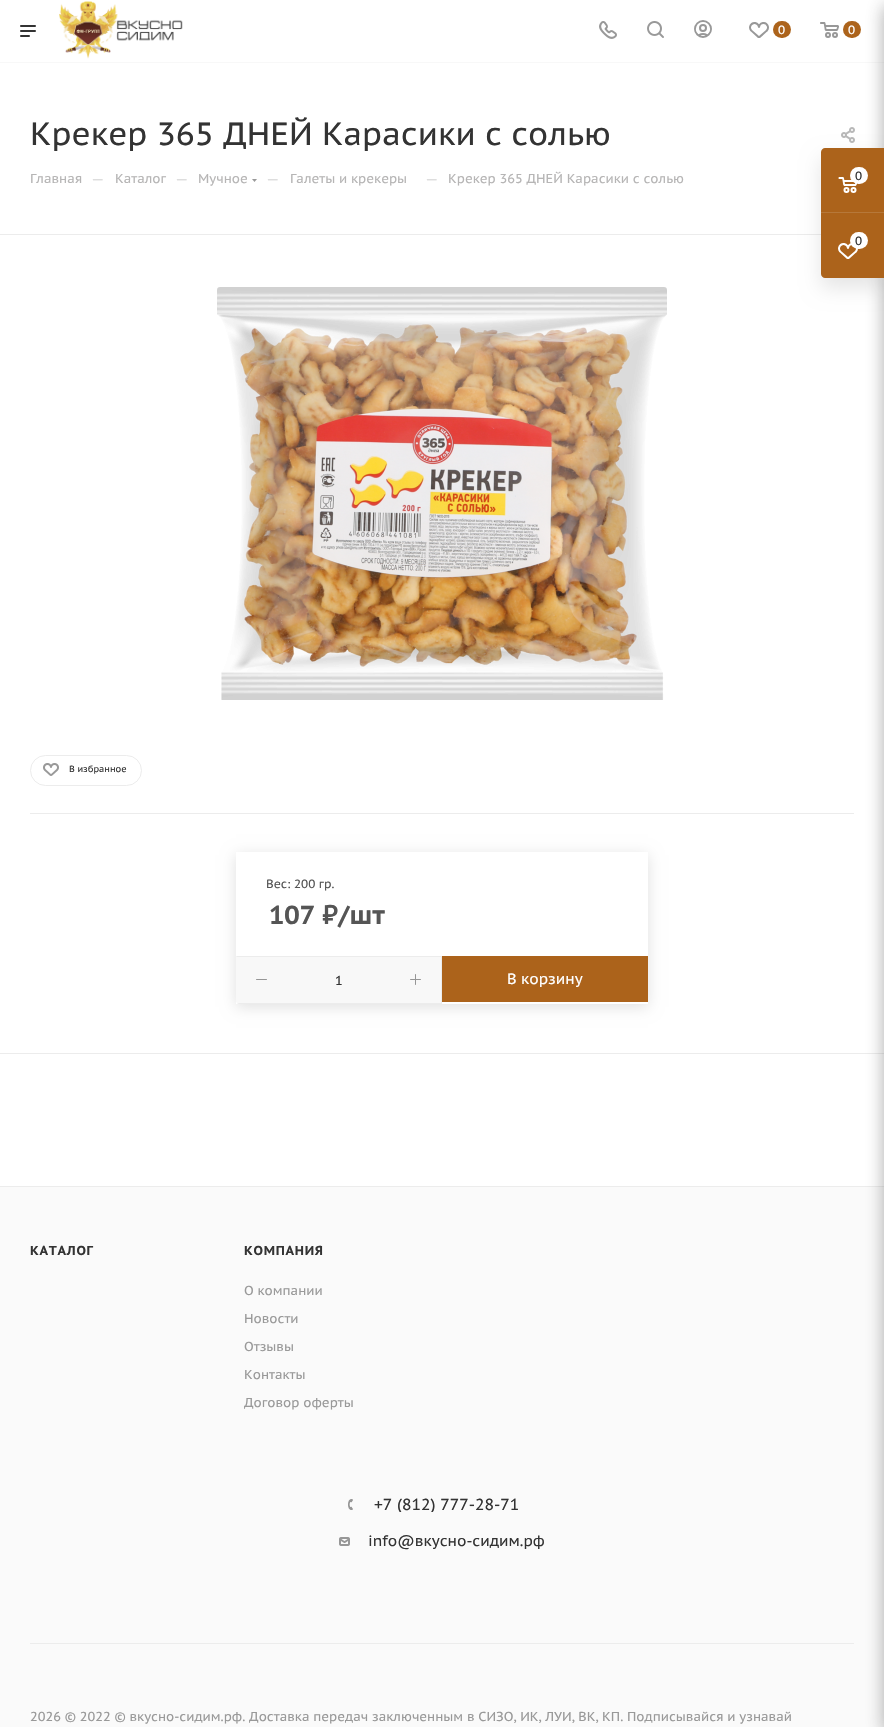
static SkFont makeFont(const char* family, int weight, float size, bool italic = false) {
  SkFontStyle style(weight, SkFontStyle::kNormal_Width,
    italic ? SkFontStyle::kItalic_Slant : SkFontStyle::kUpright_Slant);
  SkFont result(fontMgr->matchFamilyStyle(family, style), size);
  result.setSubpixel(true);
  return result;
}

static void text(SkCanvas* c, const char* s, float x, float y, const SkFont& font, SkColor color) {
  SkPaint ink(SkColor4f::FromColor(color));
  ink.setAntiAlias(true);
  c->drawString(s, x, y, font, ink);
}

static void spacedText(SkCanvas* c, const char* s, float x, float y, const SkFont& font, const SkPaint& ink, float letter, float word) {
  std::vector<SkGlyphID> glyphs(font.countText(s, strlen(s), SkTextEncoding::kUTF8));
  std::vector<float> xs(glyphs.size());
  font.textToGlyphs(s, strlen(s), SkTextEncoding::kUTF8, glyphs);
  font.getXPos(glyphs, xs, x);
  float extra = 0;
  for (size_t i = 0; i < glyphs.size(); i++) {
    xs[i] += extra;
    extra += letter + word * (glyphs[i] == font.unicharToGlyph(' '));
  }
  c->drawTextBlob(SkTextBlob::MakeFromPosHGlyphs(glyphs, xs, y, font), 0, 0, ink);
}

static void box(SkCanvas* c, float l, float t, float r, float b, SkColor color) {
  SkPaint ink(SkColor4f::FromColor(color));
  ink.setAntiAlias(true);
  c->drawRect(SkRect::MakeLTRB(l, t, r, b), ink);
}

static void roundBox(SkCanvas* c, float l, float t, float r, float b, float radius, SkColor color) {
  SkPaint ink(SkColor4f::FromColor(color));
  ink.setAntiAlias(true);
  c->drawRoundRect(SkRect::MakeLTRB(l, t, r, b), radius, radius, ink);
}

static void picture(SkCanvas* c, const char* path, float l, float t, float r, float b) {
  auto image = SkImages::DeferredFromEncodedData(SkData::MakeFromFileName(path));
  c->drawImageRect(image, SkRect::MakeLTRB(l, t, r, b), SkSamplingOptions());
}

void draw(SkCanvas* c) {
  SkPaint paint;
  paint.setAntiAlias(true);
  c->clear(0xffffffff);
  box(c, 0, 62, 884, 63, 0xfff8f8f8);
  picture(c, "img_01.png", 20, 25, 36, 37);
  picture(c, "img_02.png", 59, 1, 183, 59);
  picture(c, "img_03.png", 599, 21, 617, 39);
  picture(c, "img_04.png", 647, 21, 664, 38);
  picture(c, "img_05.png", 694, 20, 712, 38);
  picture(c, "img_06.png", 749, 22, 769, 38);
  roundBox(c, 773, 21, 791, 38, 8.5f, 0xffac631b);
  SkFont face1 = makeFont("PT Sans Caption", 400, 12);
  text(c, "0", 778, 34, face1, 0xffffffff);
  picture(c, "img_07.png", 820, 22, 839, 38);
  roundBox(c, 843, 21, 861, 38, 8.5f, 0xffac631b);
  text(c, "0", 848, 34, face1, 0xffffffff);
  c->save();
  c->clipRect(SkRect::MakeLTRB(30, 115, 808, 151));
  SkFont face2 = makeFont("PT Sans Caption", 400, 32);
  text(c, "Крекер 365 ДНЕЙ Карасики с солью", 30, 145, face2, 0xff333333);
  c->restore();
  picture(c, "img_08.png", 841, 127, 855, 143);
  SkFont face3 = makeFont("PT Sans Caption", 400, 13);
  text(c, "Главная", 30, 183, face3, 0xffb6b5b5);
  SkFont face4 = makeFont("PT Sans Caption", 400, 15);
  text(c, "—", 91, 184, face4, 0xffdddddd);
  text(c, "Каталог", 115, 183, face3, 0xffb6b5b5);
  text(c, "—", 175, 184, face4, 0xffdddddd);
  text(c, "Мучное", 198, 183, face3, 0xffb6b5b5);
  paint.setColor(0xff999999);
  c->drawPath(SkPathBuilder(SkPathFillType::kEvenOdd).moveTo(252, 179).lineTo(257, 179).lineTo(254.5f, 182).close().detach(), paint);
  text(c, "—", 266, 184, face4, 0xffdddddd);
  text(c, "Галеты и крекеры", 290, 183, face3, 0xffb6b5b5);
  text(c, "—", 425, 184, face4, 0xffdddddd);
  text(c, "Крекер 365 ДНЕЙ Карасики с солью", 448, 183, face3, 0xffb6b5b5);
  box(c, 0, 234, 821, 235, 0xffececec);
  box(c, 0, 1053, 884, 1054, 0xffececec);
  picture(c, "img_09.png", 217, 287, 667, 700);
  box(c, 30, 813, 854, 814, 0xffececec);
  paint.setStyle(SkPaint::kStroke_Style);
  paint.setStrokeWidth(1);
  paint.setColor(0xffececec);
  c->drawRoundRect(SkRect::MakeLTRB(30.5f, 755.5f, 141.5f, 785.5f), 15, 15, paint);
  picture(c, "img_10.png", 43, 763, 59, 776);
  SkFont face5 = makeFont("PT Sans Caption", 400, 9);
  text(c, "В избранное", 69, 772, face5, 0xff333333);
  c->save();
  c->clipPath(SkPathBuilder(SkPathFillType::kEvenOdd).moveTo(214, 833).lineTo(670, 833).lineTo(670, 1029).lineTo(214, 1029).close().moveTo(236, 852).lineTo(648, 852).lineTo(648, 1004).lineTo(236, 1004).close().detach(), true);
  paint.setStyle(SkPaint::kFill_Style);
  paint.setColor(0x1f000000);
  paint.setMaskFilter(SkMaskFilter::MakeBlur(kNormal_SkBlurStyle, 7));
  c->drawRect(SkRect::MakeLTRB(236, 855, 648, 1007), paint);
  paint.setMaskFilter(nullptr);
  c->restore();
  text(c, "Вес: 200 гр.", 266, 888, face1, 0xff555555);
  SkFont face6 = makeFont("PT Sans Caption", 700, 26);
  text(c, "107", 269, 924, face6, 0xff555555);
  SkFont face7 = makeFont("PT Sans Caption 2", 700, 26);
  text(c, "₽", 322, 924, face7, 0xff555555);
  text(c, "/шт", 338, 924, face6, 0xff555555);
  paint.setColor(0xfff8f8f8);
  c->drawPath(SkPathBuilder().moveTo(236, 956).lineTo(442, 956).lineTo(442, 1004).lineTo(239, 1004).cubicTo(237.5f, 1004, 236, 1002.5f, 236, 1001).close().detach(), paint);
  paint.setColor(0xffececec);
  c->drawPath(SkPathBuilder().moveTo(236, 956).lineTo(442, 956).lineTo(441, 957).lineTo(237, 957).close().detach(), paint);
  box(c, 441, 956, 442, 1004, 0xffececec);
  c->drawPath(SkPathBuilder().moveTo(442, 1004).lineTo(441, 1003).lineTo(237, 1003).lineTo(239, 1004).close().detach(), paint);
  roundBox(c, 256, 979, 267, 980, 0.5f, 0xff969696);
  text(c, "1", 335, 985, face3, 0xff333333);
  picture(c, "img_11.png", 410, 974, 421, 985);
  paint.setColor(0xffac631b);
  c->drawRect(SkRect::MakeLTRB(442.5f, 956.5f, 647.5f, 1001.5f), paint);
  paint.setStyle(SkPaint::kStroke_Style);
  c->drawRect(SkRect::MakeLTRB(442.5f, 956.5f, 647.5f, 1001.5f), paint);
  text(c, "В корзину", 507, 984, face4, 0xffffffff);
  box(c, 0, 1187, 884, 1727, 0xfffafafa);
  box(c, 0, 1186, 884, 1187, 0xffececec);
  paint.setStyle(SkPaint::kFill_Style);
  paint.setColor(0x662c2c2c);
  paint.setMaskFilter(SkMaskFilter::MakeBlur(kNormal_SkBlurStyle, 9));
  c->drawRoundRect(SkRect::MakeLTRB(884, 6, 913, 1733), 2, 2, paint);
  paint.setMaskFilter(nullptr);
  paint.setColor(0x1a000000);
  paint.setMaskFilter(SkMaskFilter::MakeBlur(kNormal_SkBlurStyle, 10));
  c->drawRoundRect(SkRect::MakeLTRB(821, 158, 884, 288), 4, 4, paint);
  paint.setMaskFilter(nullptr);
  paint.setColor(0xffac631b);
  c->drawPath(SkPathBuilder().moveTo(825, 148).lineTo(884, 148).lineTo(884, 278).lineTo(825, 278).cubicTo(823, 278, 821, 276, 821, 274).lineTo(821, 152).cubicTo(821, 150, 823, 148, 825, 148).close().detach(), paint);
  box(c, 821, 212, 884, 213, 0xffb6783a);
  picture(c, "img_12.png", 838, 177, 858, 193);
  roundBox(c, 850, 167, 868, 184, 8.5f, 0xffffffff);
  text(c, "0", 855, 180, face1, 0xff333333);
  picture(c, "img_13.png", 838, 243, 858, 259);
  roundBox(c, 850, 232, 868, 249, 8.5f, 0xffffffff);
  text(c, "0", 855, 245, face1, 0xff333333);
  SkFont face8 = makeFont("PT Sans Caption", 700, 13);
  paint.setColor(0xff333333);
  spacedText(c, "КАТАЛОГ", 30, 1255, face8, paint, 0.75f, 0);
  spacedText(c, "КОМПАНИЯ", 244, 1255, face8, paint, 0.75f, 0);
  text(c, "О компании", 244, 1295, face3, 0xff999999);
  text(c, "Новости", 244, 1323, face3, 0xff999999);
  text(c, "Отзывы", 244, 1351, face3, 0xff999999);
  text(c, "Контакты", 244, 1379, face3, 0xff999999);
  text(c, "Договор оферты", 244, 1407, face3, 0xff999999);
  picture(c, "img_14.png", 348, 1499, 353, 1510);
  c->save();
  c->clipRect(SkRect::MakeLTRB(345, 1496, 532, 1512));
  SkFont face9 = makeFont("PT Sans Caption", 400, 16);
  text(c, "+7 (812) 777-28-71", 374, 1510, face9, 0xff333333);
  c->restore();
  picture(c, "img_15.png", 339, 1537, 350, 1546);
  text(c, "info@вкусно-сидим.рф", 368, 1546, face4, 0xff333333);
  box(c, 30, 1643, 854, 1644, 0xffececec);
  text(c, "2026 © 2022 © вкусно-сидим.рф. Доставка передач заключенным в СИЗО, ИК, ЛУИ, ВК, КП. Подписывайся и узнавай", 30, 1721, face3, 0xff999999);
}
